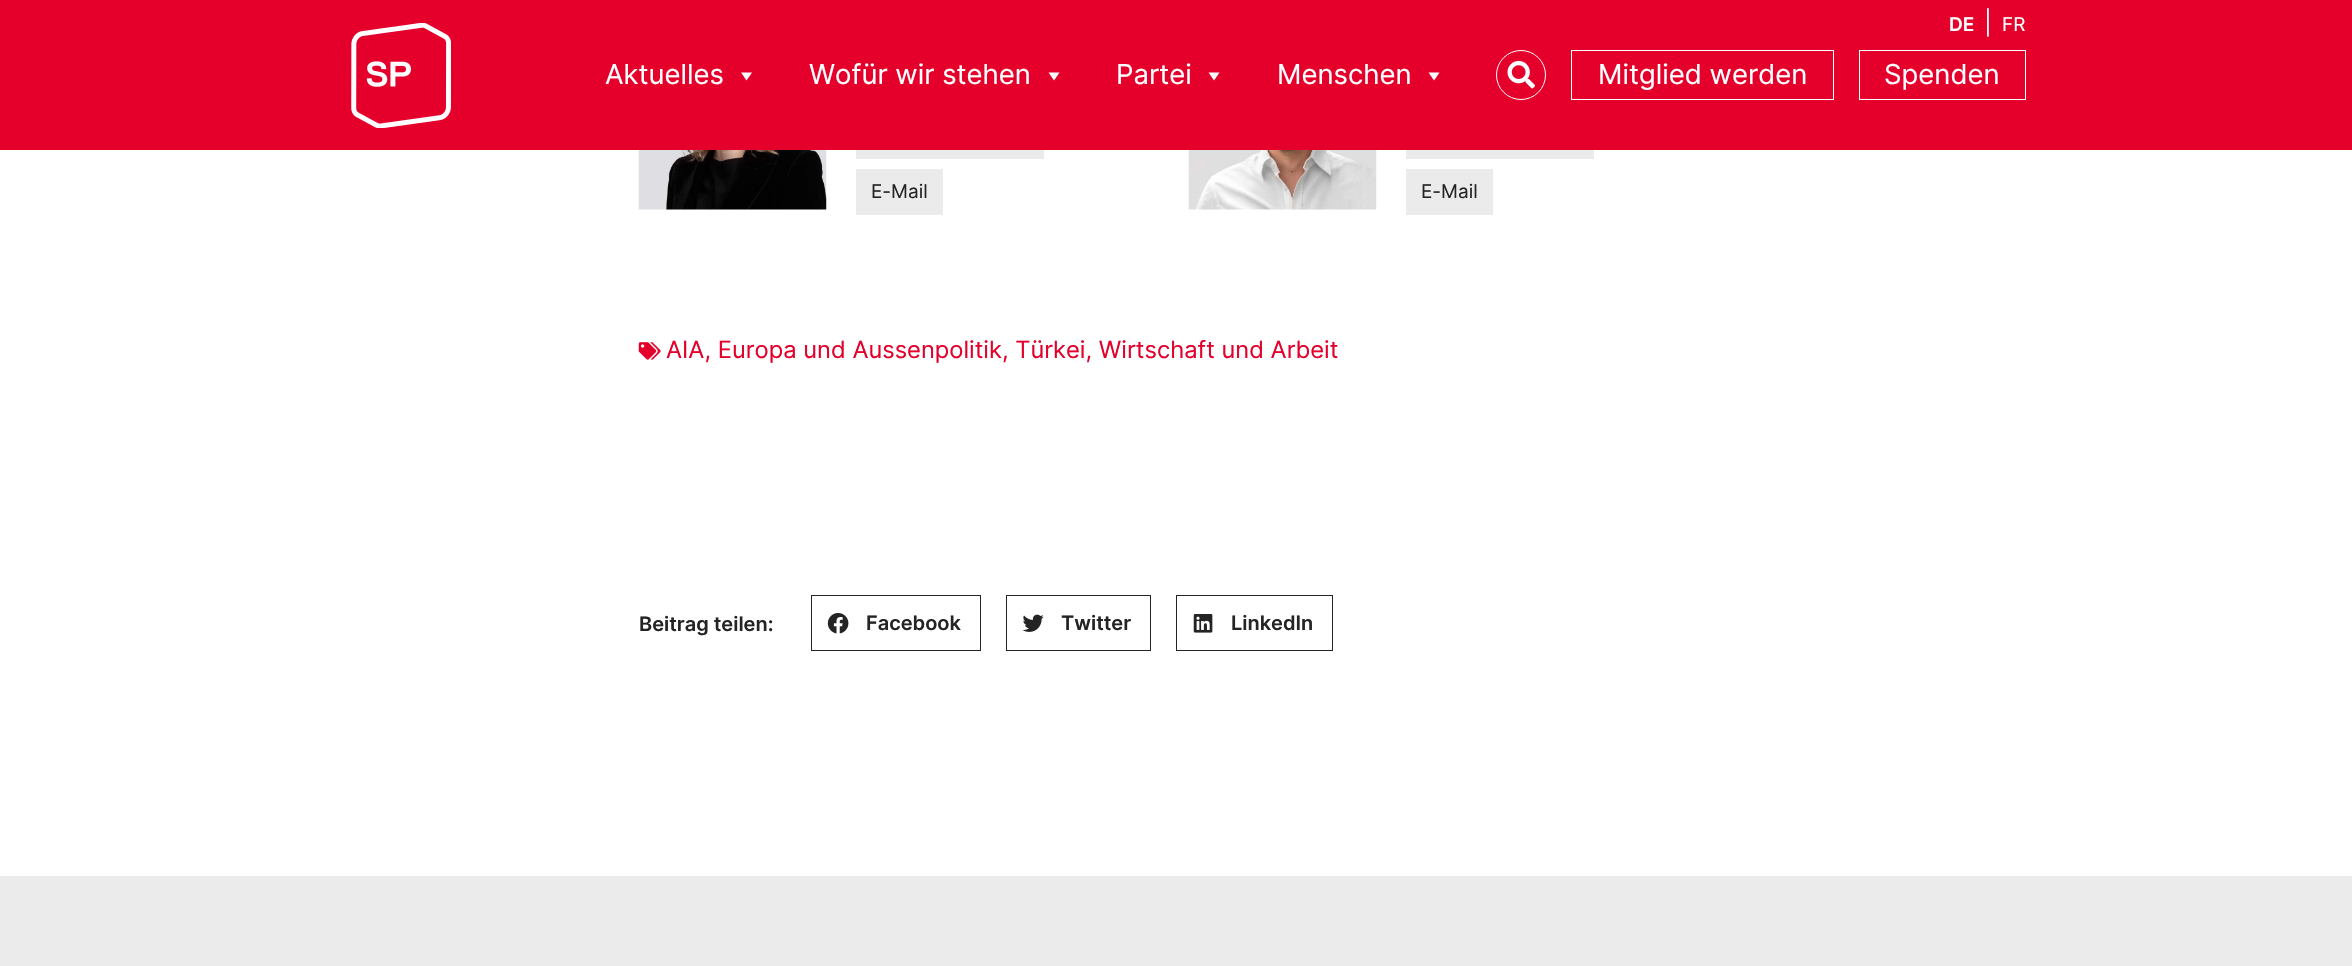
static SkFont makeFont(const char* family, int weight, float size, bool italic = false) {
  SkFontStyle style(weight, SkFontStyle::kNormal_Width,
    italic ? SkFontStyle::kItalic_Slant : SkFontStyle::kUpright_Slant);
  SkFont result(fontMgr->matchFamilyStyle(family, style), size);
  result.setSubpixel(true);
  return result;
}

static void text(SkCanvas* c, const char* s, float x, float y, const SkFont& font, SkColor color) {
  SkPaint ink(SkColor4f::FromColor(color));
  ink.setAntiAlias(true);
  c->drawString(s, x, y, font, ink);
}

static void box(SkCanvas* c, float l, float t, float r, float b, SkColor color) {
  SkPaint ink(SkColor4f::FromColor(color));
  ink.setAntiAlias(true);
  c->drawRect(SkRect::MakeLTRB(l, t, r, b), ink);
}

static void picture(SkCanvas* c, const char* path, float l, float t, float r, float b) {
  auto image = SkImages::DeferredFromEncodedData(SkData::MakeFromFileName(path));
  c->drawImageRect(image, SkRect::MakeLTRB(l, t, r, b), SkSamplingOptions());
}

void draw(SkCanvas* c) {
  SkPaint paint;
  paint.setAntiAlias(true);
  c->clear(0xffffffff);
  box(c, 0, 0, 2352, 150, 0xffe4002b);
  SkFont face1 = makeFont("Inter", 600, 19);
  text(c, "DE", 1949, 31, face1, 0xffffffff);
  SkFont face2 = makeFont("Inter", 400, 23.75f);
  text(c, "|", 1984, 31, face2, 0xffffffff);
  SkFont face3 = makeFont("Inter", 400, 19);
  text(c, "FR", 2002, 31, face3, 0xffffffff);
  picture(c, "img_01.png", 351, 23, 451, 128);
  SkFont face4 = makeFont("Inter", 400, 27.5f);
  text(c, "Aktuelles", 605, 84, face4, 0xffffffff);
  paint.setColor(0xffffffff);
  c->drawPath(SkPathBuilder().moveTo(752, 72.5f).lineTo(746.5f, 80.5f).lineTo(741, 72.5f).close().detach(), paint);
  text(c, "Wofür wir stehen", 809, 84, face4, 0xffffffff);
  c->drawPath(SkPathBuilder().moveTo(1059.5f, 72.5f).lineTo(1054, 80.5f).lineTo(1048.5f, 72.5f).close().detach(), paint);
  text(c, "Partei", 1116, 84, face4, 0xffffffff);
  c->drawPath(SkPathBuilder().moveTo(1219.5f, 72.5f).lineTo(1214, 80.5f).lineTo(1208.5f, 72.5f).close().detach(), paint);
  text(c, "Menschen", 1277, 84, face4, 0xffffffff);
  c->drawPath(SkPathBuilder().moveTo(1439.5f, 72.5f).lineTo(1434, 80.5f).lineTo(1428.5f, 72.5f).close().detach(), paint);
  paint.setStyle(SkPaint::kStroke_Style);
  paint.setStrokeWidth(1);
  c->drawCircle(1521, 75, 24.5f, paint);
  picture(c, "img_02.png", 1507, 60, 1535, 89);
  c->drawRect(SkRect::MakeLTRB(1571.5f, 50.5f, 1833.5f, 99.5f), paint);
  text(c, "Mitglied werden", 1598, 84, face4, 0xffffffff);
  c->drawRect(SkRect::MakeLTRB(1859.5f, 50.5f, 2025.5f, 99.5f), paint);
  text(c, "Spenden", 1884, 84, face4, 0xffffffff);
  picture(c, "img_03.png", 638, 150, 827, 210);
  box(c, 856, 150, 1044, 159, 0xffebebeb);
  box(c, 856, 169, 943, 215, 0xffebebeb);
  text(c, "E-Mail", 871, 198, face3, 0xff242424);
  picture(c, "img_04.png", 1188, 150, 1377, 210);
  box(c, 1406, 150, 1594, 159, 0xffebebeb);
  box(c, 1406, 169, 1493, 215, 0xffebebeb);
  text(c, "E-Mail", 1421, 198, face3, 0xff242424);
  picture(c, "img_05.png", 638, 342, 661, 360);
  text(c, "AIA, Europa und Aussenpolitik, Türkei, Wirtschaft und Arbeit", 666, 358, face2, 0xffe4002b);
  SkFont face5 = makeFont("Inter", 600, 20);
  text(c, "Beitrag teilen:", 639, 631, face5, 0xff242424);
  paint.setColor(0xff242424);
  c->drawRect(SkRect::MakeLTRB(811.5f, 595.5f, 980.5f, 650.5f), paint);
  picture(c, "img_06.png", 827, 613, 849, 634);
  text(c, "Facebook", 866, 630, face5, 0xff242424);
  c->drawRect(SkRect::MakeLTRB(1006.5f, 595.5f, 1150.5f, 650.5f), paint);
  picture(c, "img_07.png", 1022, 614, 1044, 632);
  text(c, "Twitter", 1061, 630, face5, 0xff242424);
  c->drawRect(SkRect::MakeLTRB(1176.5f, 595.5f, 1332.5f, 650.5f), paint);
  picture(c, "img_08.png", 1193, 614, 1213, 633);
  text(c, "LinkedIn", 1231, 630, face5, 0xff242424);
  box(c, 0, 876, 2352, 966, 0xffebebeb);
}
